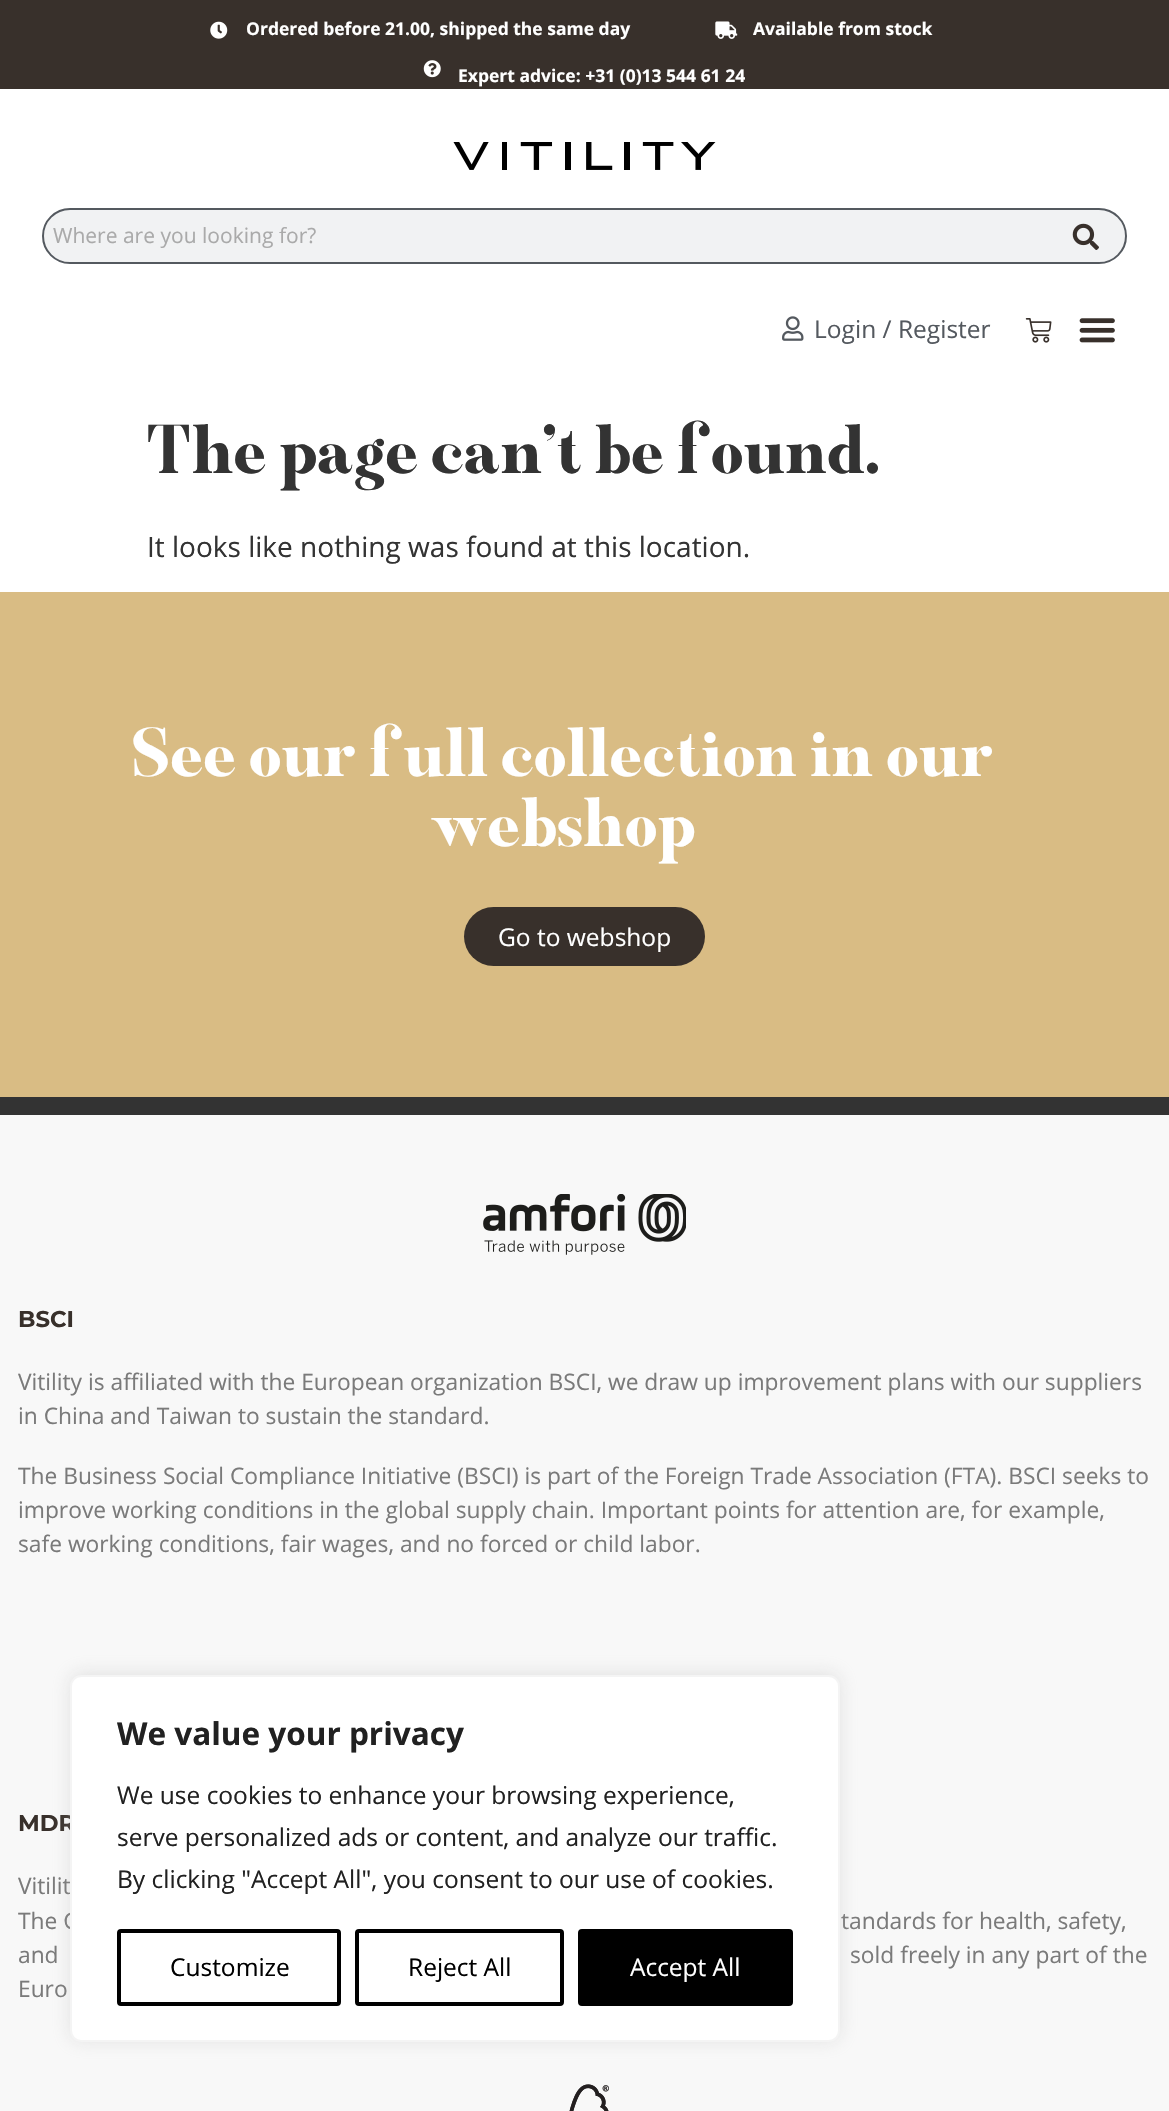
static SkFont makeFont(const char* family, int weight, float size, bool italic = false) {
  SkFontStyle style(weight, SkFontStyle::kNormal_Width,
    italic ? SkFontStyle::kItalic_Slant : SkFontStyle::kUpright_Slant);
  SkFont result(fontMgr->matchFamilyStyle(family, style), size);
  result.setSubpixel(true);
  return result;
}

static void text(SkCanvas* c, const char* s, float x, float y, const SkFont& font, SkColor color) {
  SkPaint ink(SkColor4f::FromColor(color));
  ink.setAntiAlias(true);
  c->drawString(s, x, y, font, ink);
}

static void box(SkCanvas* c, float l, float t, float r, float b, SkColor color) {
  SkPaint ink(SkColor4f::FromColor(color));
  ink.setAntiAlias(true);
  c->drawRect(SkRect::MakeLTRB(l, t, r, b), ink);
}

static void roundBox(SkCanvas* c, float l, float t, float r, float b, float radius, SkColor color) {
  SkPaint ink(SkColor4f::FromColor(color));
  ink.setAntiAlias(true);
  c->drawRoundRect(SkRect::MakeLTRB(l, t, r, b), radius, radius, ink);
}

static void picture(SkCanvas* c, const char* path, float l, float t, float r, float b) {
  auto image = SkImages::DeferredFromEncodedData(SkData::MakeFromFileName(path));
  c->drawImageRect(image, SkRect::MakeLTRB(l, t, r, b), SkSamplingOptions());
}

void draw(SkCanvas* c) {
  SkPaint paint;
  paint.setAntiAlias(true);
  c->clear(0xffffffff);
  box(c, 0, 0, 1169, 89, 0xff38302b);
  picture(c, "img_01.png", 210, 21, 228, 39);
  SkFont face1 = makeFont("Open Sans", 700, 17.5f);
  text(c, "Ordered before 21.00, shipped the same day", 246, 35, face1, 0xffffffff);
  picture(c, "img_02.png", 715, 21, 738, 39);
  text(c, "Available from stock", 753, 35, face1, 0xffffffff);
  picture(c, "img_03.png", 423, 60, 441, 78);
  text(c, "Expert advice: +31 (0)13 544 61 24", 458, 82, face1, 0xffffffff);
  picture(c, "img_04.png", 453, 142, 716, 170);
  paint.setColor(0xfff1f2f3);
  c->drawRoundRect(SkRect::MakeLTRB(43, 209, 1126, 263), 27, 27, paint);
  paint.setStyle(SkPaint::kStroke_Style);
  paint.setStrokeWidth(2);
  paint.setColor(0xff54595f);
  c->drawRoundRect(SkRect::MakeLTRB(43, 209, 1126, 263), 27, 27, paint);
  SkFont face2 = makeFont("Open Sans", 400, 21);
  text(c, "Where are you looking for?", 53, 243, face2, 0xffaaaaaa);
  picture(c, "img_05.png", 1072, 223, 1099, 250);
  picture(c, "img_06.png", 782, 316, 804, 341);
  SkFont face3 = makeFont("Open Sans", 400, 24.5f);
  text(c, "Login / Register", 814, 338, face3, 0xff54595f);
  picture(c, "img_07.png", 1025, 318, 1052, 343);
  picture(c, "img_08.png", 1079, 318, 1115, 343);
  SkFont face4 = makeFont("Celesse", 400, 70);
  text(c, "The page can’t be found.", 147, 473, face4, 0xff333333);
  SkFont face5 = makeFont("Open Sans", 400, 28);
  text(c, "It looks like nothing was found at this location.", 147, 557, face5, 0xff333333);
  box(c, 0, 592, 1169, 1097, 0xffd9bc84);
  box(c, 0, 1097, 1169, 1115, 0xff333333);
  text(c, "See our full collection in our", 132, 776, face4, 0xffffffff);
  text(c, "webshop", 430, 846, face4, 0xffffffff);
  roundBox(c, 464, 907, 705, 966, 29.5f, 0xff38302b);
  text(c, "Go to webshop", 498, 946, face3, 0xffffffff);
  box(c, 0, 1115, 1169, 2111, 0xfff8f8f8);
  picture(c, "img_09.png", 483, 1194, 686, 1255);
  SkFont face6 = makeFont("Montserrat", 700, 22.75f);
  text(c, "BSCI", 18, 1327, face6, 0xff38302b);
  SkFont face7 = makeFont("Open Sans", 400, 22.75f);
  text(c, "Vitility is affiliated with the European organization BSCI, we draw up improvement plans with our suppliers", 18, 1390, face7, 0xff7a7a7a);
  text(c, "in China and Taiwan to sustain the standard.", 18, 1424, face7, 0xff7a7a7a);
  text(c, "The Business Social Compliance Initiative (BSCI) is part of the Foreign Trade Association (FTA). BSCI seeks to", 18, 1484, face7, 0xff7a7a7a);
  text(c, "improve working conditions in the global supply chain. Important points for attention are, for example,", 18, 1518, face7, 0xff7a7a7a);
  text(c, "safe working conditions, fair wages, and no forced or child labor.", 18, 1552, face7, 0xff7a7a7a);
  text(c, "MDR", 18, 1831, face6, 0xff38302b);
  text(c, "Vitilit", 18, 1894, face7, 0xff7a7a7a);
  text(c, "The C", 18, 1929, face7, 0xff7a7a7a);
  text(c, "tandards for health, safety,", 841, 1929, face7, 0xff7a7a7a);
  text(c, "and", 18, 1963, face7, 0xff7a7a7a);
  text(c, "sold freely in any part of the", 850, 1963, face7, 0xff7a7a7a);
  text(c, "Euro", 18, 1997, face7, 0xff7a7a7a);
  picture(c, "img_10.png", 569, 2084, 609, 2111);
  paint.setStyle(SkPaint::kFill_Style);
  paint.setColor(0x4dacabab);
  paint.setMaskFilter(SkMaskFilter::MakeBlur(kNormal_SkBlurStyle, 9));
  c->drawRoundRect(SkRect::MakeLTRB(70, 1673, 840, 2041), 11, 11, paint);
  paint.setMaskFilter(nullptr);
  paint.setColor(0xffffffff);
  c->drawRoundRect(SkRect::MakeLTRB(71, 1676, 839, 2041), 10, 10, paint);
  paint.setStyle(SkPaint::kStroke_Style);
  paint.setColor(0xfff4f4f4);
  c->drawRoundRect(SkRect::MakeLTRB(71, 1676, 839, 2041), 10, 10, paint);
  SkFont face8 = makeFont("Open Sans", 700, 31.5f);
  text(c, "We value your privacy", 117, 1745, face8, 0xff212121);
  text(c, "We use cookies to enhance your browsing experience,", 117, 1804, face3, 0xff212121);
  text(c, "serve personalized ads or content, and analyze our traffic.", 117, 1846, face3, 0xff212121);
  text(c, "By clicking \"Accept All\", you consent to our use of cookies.", 117, 1888, face3, 0xff212121);
  paint.setStrokeWidth(4);
  paint.setColor(0xff000000);
  c->drawRoundRect(SkRect::MakeLTRB(119, 1931, 339, 2004), 2, 2, paint);
  text(c, "Customize", 170, 1976, face3, 0xff000000);
  c->drawRoundRect(SkRect::MakeLTRB(357, 1931, 562, 2004), 2, 2, paint);
  text(c, "Reject All", 408, 1976, face3, 0xff000000);
  paint.setStyle(SkPaint::kFill_Style);
  c->drawRoundRect(SkRect::MakeLTRB(580, 1931, 791, 2004), 2, 2, paint);
  paint.setStyle(SkPaint::kStroke_Style);
  c->drawRoundRect(SkRect::MakeLTRB(580, 1931, 791, 2004), 2, 2, paint);
  text(c, "Accept All", 630, 1976, face3, 0xffffffff);
}
